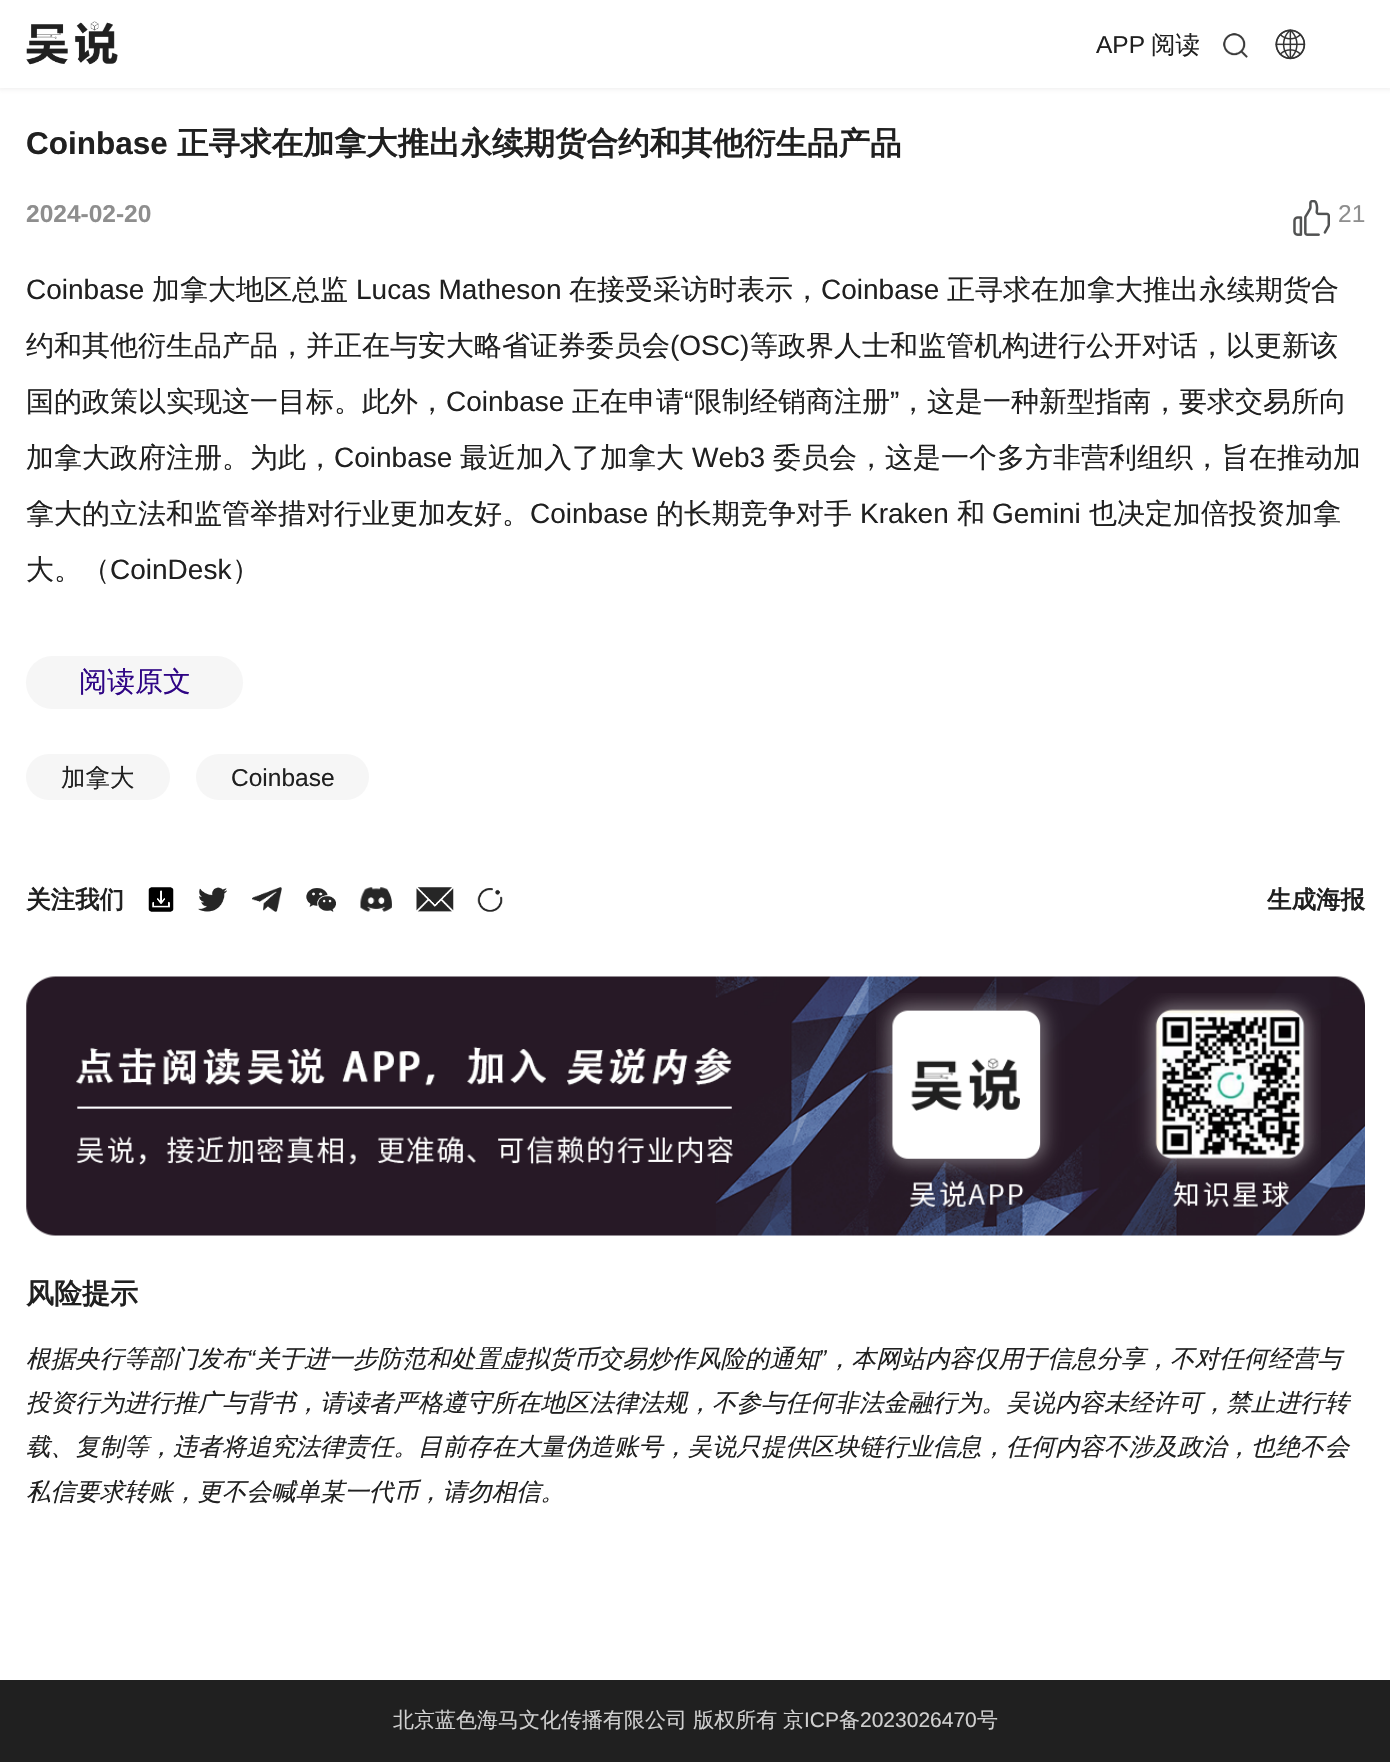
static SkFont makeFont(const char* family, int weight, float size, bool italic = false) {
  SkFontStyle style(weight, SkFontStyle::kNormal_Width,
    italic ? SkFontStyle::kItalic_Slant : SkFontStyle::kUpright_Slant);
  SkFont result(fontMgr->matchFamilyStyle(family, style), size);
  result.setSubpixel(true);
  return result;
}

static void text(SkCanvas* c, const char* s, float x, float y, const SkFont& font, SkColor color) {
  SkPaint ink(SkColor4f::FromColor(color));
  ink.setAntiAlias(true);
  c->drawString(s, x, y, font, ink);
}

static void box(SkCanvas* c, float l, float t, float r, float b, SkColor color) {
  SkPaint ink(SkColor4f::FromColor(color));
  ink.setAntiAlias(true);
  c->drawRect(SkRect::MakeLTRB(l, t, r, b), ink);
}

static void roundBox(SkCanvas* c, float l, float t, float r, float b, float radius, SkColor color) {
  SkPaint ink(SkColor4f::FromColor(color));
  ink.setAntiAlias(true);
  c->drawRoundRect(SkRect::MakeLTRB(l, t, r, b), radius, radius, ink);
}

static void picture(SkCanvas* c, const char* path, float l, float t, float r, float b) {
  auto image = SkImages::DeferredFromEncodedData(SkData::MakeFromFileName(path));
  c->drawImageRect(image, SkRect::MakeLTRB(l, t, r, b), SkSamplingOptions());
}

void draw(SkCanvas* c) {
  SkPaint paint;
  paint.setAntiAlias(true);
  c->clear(0xffffffff);
  paint.setColor(0x4dc5bfbf);
  paint.setMaskFilter(SkMaskFilter::MakeBlur(kNormal_SkBlurStyle, 2.5f));
  c->drawRect(SkRect::MakeLTRB(-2, -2, 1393, 89), paint);
  paint.setMaskFilter(nullptr);
  box(c, 0, 0, 1390, 88, 0xffffffff);
  picture(c, "img_01.png", 26, 21, 118, 65);
  SkFont face1 = makeFont("Liberation Sans", 400, 24.5f);
  text(c, "APP", 1096, 53, face1, 0xff202020);
  SkFont face2 = makeFont("WenQuanYi Zen Hei", 500, 24.5f);
  text(c, "阅读", 1151, 53, face2, 0xff202020);
  picture(c, "img_02.png", 1223, 33, 1248, 58);
  picture(c, "img_03.png", 1275, 29, 1306, 60);
  SkFont face3 = makeFont("Liberation Sans", 700, 31.5f);
  text(c, "Coinbase", 26, 154, face3, 0xff202020);
  SkFont face4 = makeFont("WenQuanYi Zen Hei", 700, 31.5f);
  text(c, "正寻求在加拿大推出永续期货合约和其他衍生品产品", 177, 154, face4, 0xff202020);
  SkFont face5 = makeFont("Liberation Sans", 700, 24.5f);
  text(c, "2024-02-20", 26, 222, face5, 0xff8e8e8e);
  picture(c, "img_04.png", 1293, 200, 1330, 236);
  text(c, "21", 1338, 222, face1, 0xff8e8e8e);
  SkFont face6 = makeFont("Liberation Sans", 400, 28);
  text(c, "Coinbase", 26, 299, face6, 0xff202020);
  SkFont face7 = makeFont("WenQuanYi Zen Hei", 500, 28);
  text(c, "加拿大地区总监", 152, 299, face7, 0xff202020);
  text(c, "Lucas Matheson", 356, 299, face6, 0xff202020);
  text(c, "在接受采访时表示，", 569, 299, face7, 0xff202020);
  text(c, "Coinbase", 821, 299, face6, 0xff202020);
  text(c, "正寻求在加拿大推出永续期货合", 947, 299, face7, 0xff202020);
  text(c, "约和其他衍生品产品，并正在与安大略省证券委员会", 26, 355, face7, 0xff202020);
  text(c, "(OSC)", 670, 355, face6, 0xff202020);
  text(c, "等政界人士和监管机构进行公开对话，以更新该", 750, 355, face7, 0xff202020);
  text(c, "国的政策以实现这一目标。此外，", 26, 411, face7, 0xff202020);
  text(c, "Coinbase", 446, 411, face6, 0xff202020);
  text(c, "正在申请", 572, 411, face7, 0xff202020);
  text(c, "“", 684, 411, face6, 0xff202020);
  text(c, "限制经销商注册", 694, 411, face7, 0xff202020);
  text(c, "”", 890, 411, face6, 0xff202020);
  text(c, "，这是一种新型指南，要求交易所向", 899, 411, face7, 0xff202020);
  text(c, "加拿大政府注册。为此，", 26, 467, face7, 0xff202020);
  text(c, "Coinbase", 334, 467, face6, 0xff202020);
  text(c, "最近加入了加拿大", 460, 467, face7, 0xff202020);
  text(c, "Web3", 692, 467, face6, 0xff202020);
  text(c, "委员会，这是一个多方非营利组织，旨在推动加", 773, 467, face7, 0xff202020);
  text(c, "拿大的立法和监管举措对行业更加友好。", 26, 523, face7, 0xff202020);
  text(c, "Coinbase", 530, 523, face6, 0xff202020);
  text(c, "的长期竞争对手", 656, 523, face7, 0xff202020);
  text(c, "Kraken", 860, 523, face6, 0xff202020);
  text(c, "和", 957, 523, face7, 0xff202020);
  text(c, "Gemini", 992, 523, face6, 0xff202020);
  text(c, "也决定加倍投资加拿", 1089, 523, face7, 0xff202020);
  text(c, "大。（", 26, 579, face7, 0xff202020);
  text(c, "CoinDesk", 110, 579, face6, 0xff202020);
  text(c, "）", 232, 579, face7, 0xff202020);
  roundBox(c, 26, 656, 243, 709, 26.5f, 0xfff6f6f6);
  text(c, "阅读原文", 79, 691, face7, 0xff2f0585);
  roundBox(c, 26, 754, 170, 800, 23, 0xfff6f6f6);
  text(c, "加拿大", 61, 786, face2, 0xff202020);
  roundBox(c, 196, 754, 369, 800, 23, 0xfff6f6f6);
  text(c, "Coinbase", 231, 786, face1, 0xff202020);
  SkFont face8 = makeFont("WenQuanYi Zen Hei", 700, 24.5f);
  text(c, "关注我们", 26, 908, face8, 0xff202020);
  picture(c, "img_05.png", 148, 887, 174, 912);
  picture(c, "img_06.png", 198, 887, 227, 912);
  picture(c, "img_07.png", 252, 887, 282, 912);
  picture(c, "img_08.png", 306, 888, 336, 912);
  picture(c, "img_09.png", 360, 887, 392, 912);
  picture(c, "img_10.png", 416, 887, 454, 912);
  picture(c, "img_11.png", 477, 888, 503, 912);
  text(c, "生成海报", 1267, 908, face8, 0xff202020);
  picture(c, "img_12.png", 26, 976, 1365, 1236);
  picture(c, "img_13.png", 876, 993, 1321, 1208);
  SkFont face9 = makeFont("WenQuanYi Zen Hei", 700, 28);
  text(c, "风险提示", 26, 1303, face9, 0xff202020);
  SkFont face10 = makeFont("WenQuanYi Zen Hei", 500, 24.5f, true);
  text(c, "根据央行等部门发布", 26, 1367, face10, 0xff202020);
  SkFont face11 = makeFont("Liberation Sans", 400, 24.5f, true);
  text(c, "“", 247, 1367, face11, 0xff202020);
  text(c, "关于进一步防范和处置虚拟货币交易炒作风险的通知", 255, 1367, face10, 0xff202020);
  text(c, "”", 818, 1367, face11, 0xff202020);
  text(c, "，本网站内容仅用于信息分享，不对任何经营与", 827, 1367, face10, 0xff202020);
  text(c, "投资行为进行推广与背书，请读者严格遵守所在地区法律法规，不参与任何非法金融行为。吴说内容未经许可，禁止进行转", 26, 1411, face10, 0xff202020);
  text(c, "载、复制等，违者将追究法律责任。目前存在大量伪造账号，吴说只提供区块链行业信息，任何内容不涉及政治，也绝不会", 26, 1455, face10, 0xff202020);
  text(c, "私信要求转账，更不会喊单某一代币，请勿相信。", 26, 1500, face10, 0xff202020);
  box(c, 0, 1680, 1390, 1762, 0xff202020);
  SkFont face12 = makeFont("WenQuanYi Zen Hei", 500, 21);
  text(c, "北京蓝色海马文化传播有限公司 版权所有", 393, 1727, face12, 0xffd0d0d0);
  text(c, "京", 783, 1727, face12, 0xffd0d0d0);
  SkFont face13 = makeFont("Liberation Sans", 400, 21);
  text(c, "ICP", 804, 1727, face13, 0xffd0d0d0);
  text(c, "备", 839, 1727, face12, 0xffd0d0d0);
  text(c, "2023026470", 860, 1727, face13, 0xffd0d0d0);
  text(c, "号", 977, 1727, face12, 0xffd0d0d0);
}
